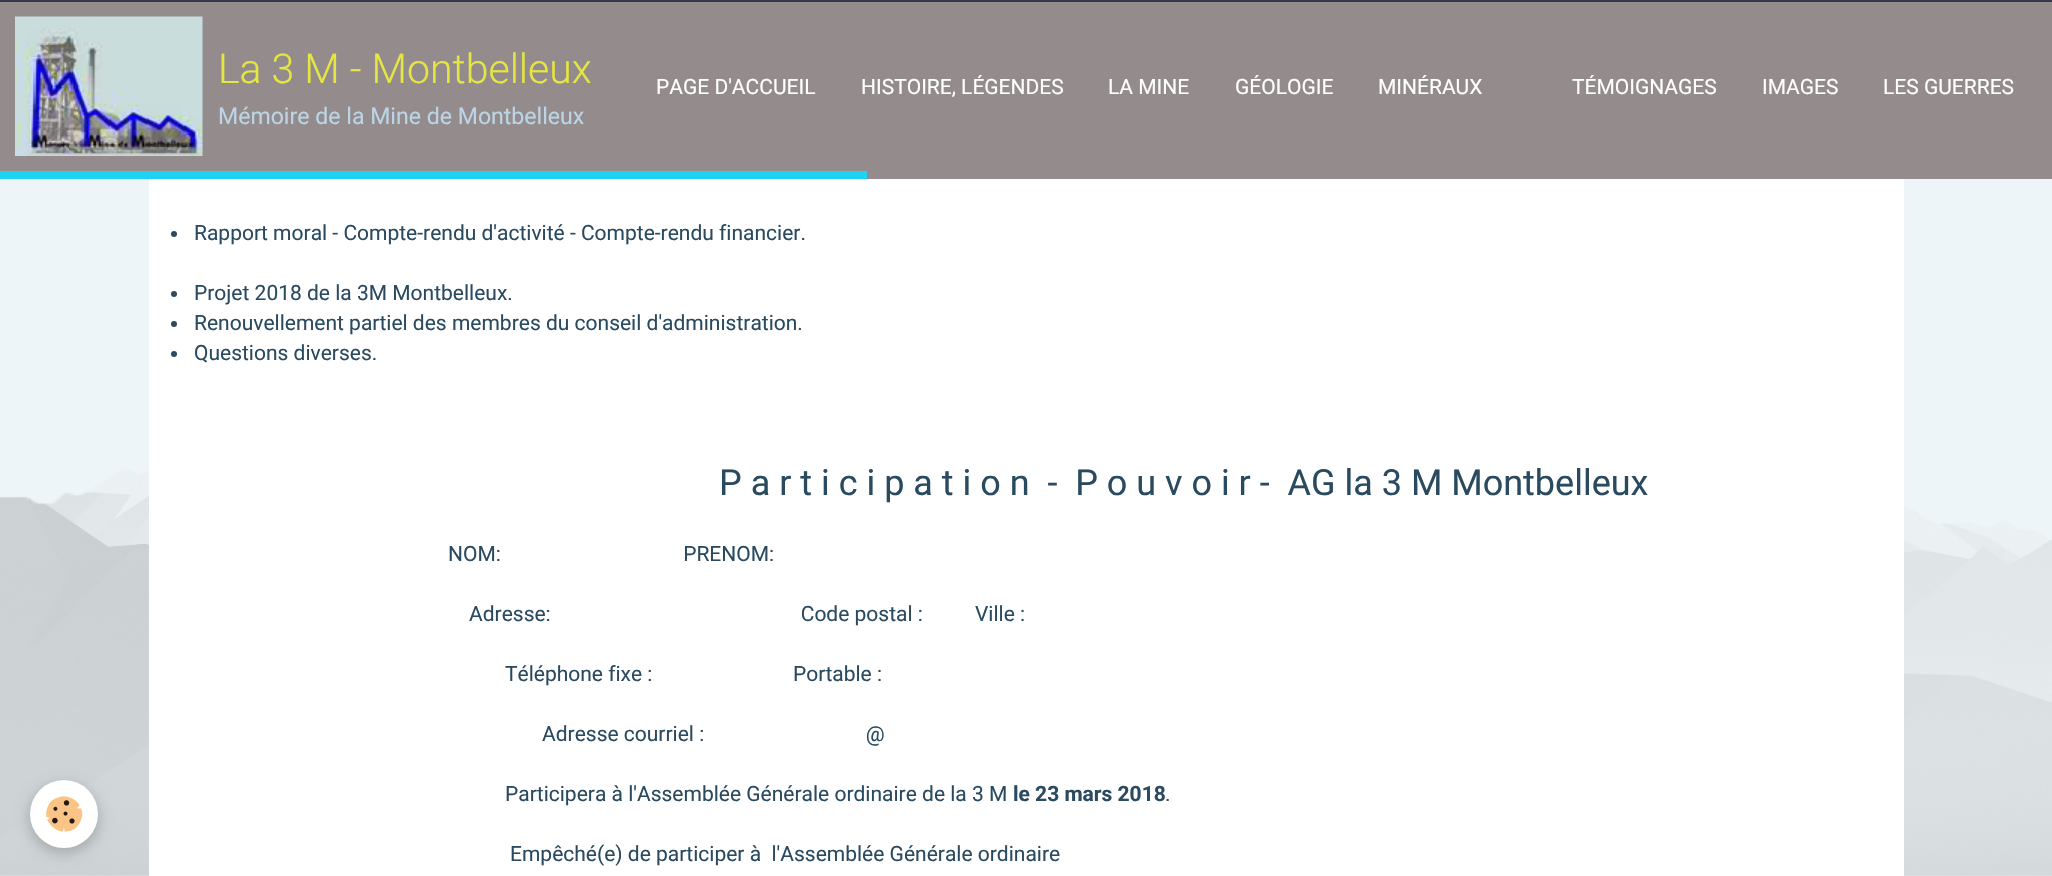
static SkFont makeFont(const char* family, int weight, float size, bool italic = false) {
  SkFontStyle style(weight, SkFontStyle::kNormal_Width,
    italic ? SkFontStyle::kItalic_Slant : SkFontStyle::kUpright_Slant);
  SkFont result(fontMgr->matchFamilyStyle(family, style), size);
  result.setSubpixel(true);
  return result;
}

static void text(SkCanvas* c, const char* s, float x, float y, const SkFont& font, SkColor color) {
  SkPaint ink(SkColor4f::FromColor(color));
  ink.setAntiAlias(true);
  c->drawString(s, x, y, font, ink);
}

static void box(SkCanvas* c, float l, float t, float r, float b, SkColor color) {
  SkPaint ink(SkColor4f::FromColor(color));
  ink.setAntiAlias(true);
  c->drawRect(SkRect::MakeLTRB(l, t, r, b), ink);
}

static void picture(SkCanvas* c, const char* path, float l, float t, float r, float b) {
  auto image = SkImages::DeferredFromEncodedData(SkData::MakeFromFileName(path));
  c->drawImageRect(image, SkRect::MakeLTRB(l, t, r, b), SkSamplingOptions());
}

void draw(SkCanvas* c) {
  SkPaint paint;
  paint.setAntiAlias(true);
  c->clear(0xffeef5f8);
  picture(c, "img_01.png", 0, 466, 2052, 876);
  box(c, 0, 2, 2052, 179, 0xff948c8c);
  box(c, 0, 0, 2052, 2, 0xff38384c);
  picture(c, "img_02.png", 15, 16, 203, 156);
  SkFont face1 = makeFont("Roboto", 300, 41);
  text(c, "La 3 M - Montbelleux", 218, 83, face1, 0xffe5e642);
  SkFont face2 = makeFont("Roboto", 400, 23.1f);
  text(c, "Mémoire de la Mine de Montbelleux", 218, 124, face2, 0xffbbd5e6);
  SkFont face3 = makeFont("Roboto", 400, 21);
  text(c, "PAGE D'ACCUEIL", 656, 94, face3, 0xffffffff);
  text(c, "HISTOIRE, LÉGENDES", 861, 94, face3, 0xffffffff);
  text(c, "LA MINE", 1108, 94, face3, 0xffffffff);
  text(c, "GÉOLOGIE", 1235, 94, face3, 0xffffffff);
  text(c, "MINÉRAUX", 1378, 94, face3, 0xffffffff);
  text(c, "TÉMOIGNAGES", 1572, 94, face3, 0xffffffff);
  text(c, "IMAGES", 1762, 94, face3, 0xffffffff);
  text(c, "LES GUERRES", 1883, 94, face3, 0xffffffff);
  box(c, 0, 171, 867, 179, 0xff1ed2f4);
  paint.setColor(0x3d000000);
  paint.setMaskFilter(SkMaskFilter::MakeBlur(kNormal_SkBlurStyle, 7.5f));
  c->drawRoundRect(SkRect::MakeLTRB(30, 785, 98, 852), 33.5f, 33.5f, paint);
  paint.setMaskFilter(nullptr);
  paint.setColor(0xffffffff);
  c->drawCircle(64, 814, 34, paint);
  picture(c, "img_03.png", 46, 796, 83, 832);
  box(c, 149, 179, 1904, 876, 0xffffffff);
  paint.setColor(0xff2a4a60);
  c->drawCircle(174, 234, 3, paint);
  text(c, "Rapport moral - Compte-rendu d'activité - Compte-rendu financier.", 194, 240, face3, 0xff2a4a60);
  c->drawCircle(174, 294, 3, paint);
  text(c, "Projet 2018 de la 3M Montbelleux.", 194, 300, face3, 0xff2a4a60);
  c->drawCircle(174, 324, 3, paint);
  text(c, "Renouvellement partiel des membres du conseil d'administration.", 194, 330, face3, 0xff2a4a60);
  c->drawCircle(174, 354, 3, paint);
  text(c, "Questions diverses.", 194, 360, face3, 0xff2a4a60);
  SkFont face4 = makeFont("Roboto", 400, 36);
  text(c, "P a r t i c i p a t i o n  -  P o u v o i r -  AG la 3 M Montbelleux", 719, 495, face4, 0xff2a4a60);
  text(c, "NOM:                                   PRENOM:", 448, 561, face3, 0xff2a4a60);
  text(c, "Adresse:                                                Code postal :          Ville :", 469, 621, face3, 0xff2a4a60);
  text(c, "Téléphone fixe :                           Portable :", 505, 681, face3, 0xff2a4a60);
  text(c, "Adresse courriel :                               @", 542, 741, face3, 0xff2a4a60);
  text(c, "Participera à l'Assemblée Générale ordinaire de la 3 M", 505, 801, face3, 0xff2a4a60);
  SkFont face5 = makeFont("Roboto", 700, 21);
  text(c, "le 23 mars 2018", 1013, 801, face5, 0xff2a4a60);
  text(c, ".", 1165, 801, face3, 0xff2a4a60);
  text(c, "Empêché(e) de participer à  l'Assemblée Générale ordinaire", 510, 861, face3, 0xff2a4a60);
}
